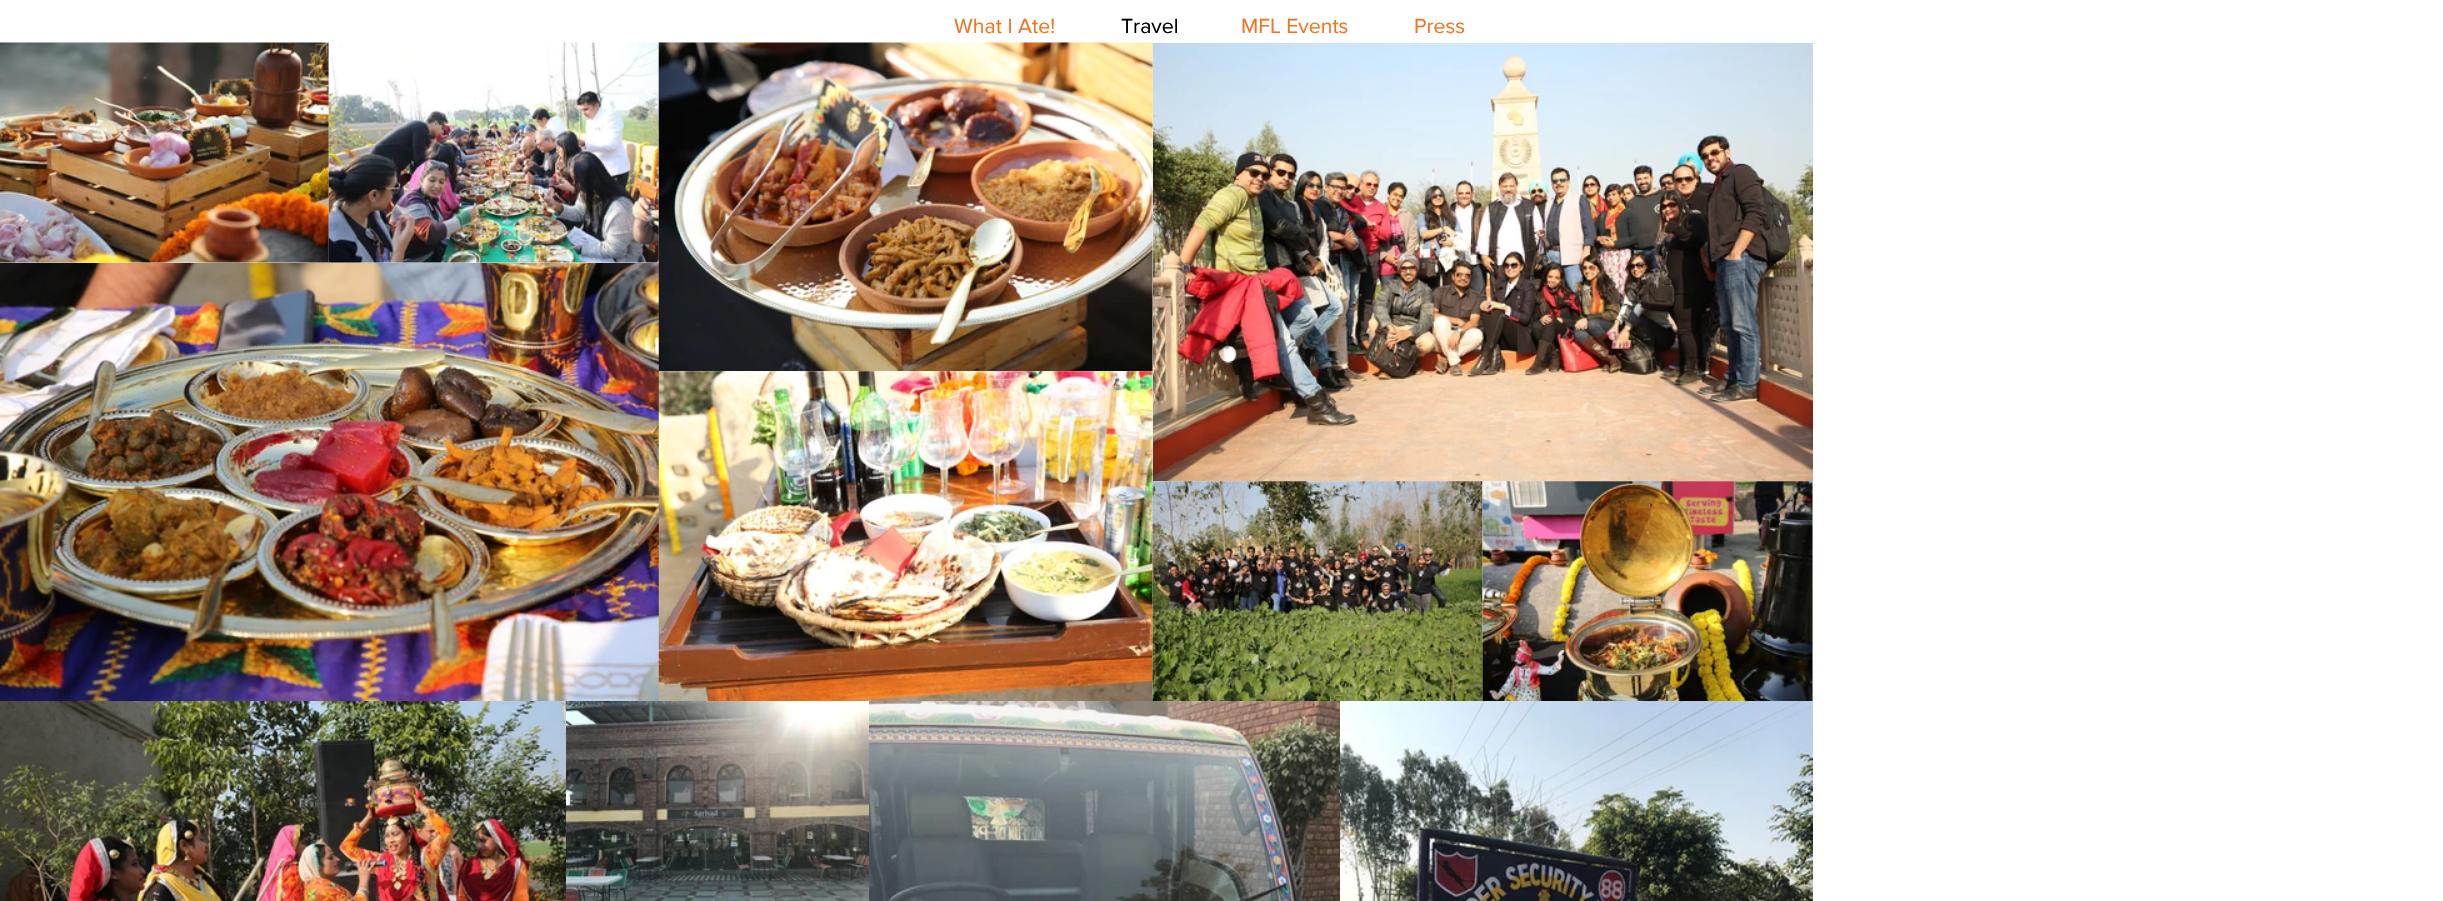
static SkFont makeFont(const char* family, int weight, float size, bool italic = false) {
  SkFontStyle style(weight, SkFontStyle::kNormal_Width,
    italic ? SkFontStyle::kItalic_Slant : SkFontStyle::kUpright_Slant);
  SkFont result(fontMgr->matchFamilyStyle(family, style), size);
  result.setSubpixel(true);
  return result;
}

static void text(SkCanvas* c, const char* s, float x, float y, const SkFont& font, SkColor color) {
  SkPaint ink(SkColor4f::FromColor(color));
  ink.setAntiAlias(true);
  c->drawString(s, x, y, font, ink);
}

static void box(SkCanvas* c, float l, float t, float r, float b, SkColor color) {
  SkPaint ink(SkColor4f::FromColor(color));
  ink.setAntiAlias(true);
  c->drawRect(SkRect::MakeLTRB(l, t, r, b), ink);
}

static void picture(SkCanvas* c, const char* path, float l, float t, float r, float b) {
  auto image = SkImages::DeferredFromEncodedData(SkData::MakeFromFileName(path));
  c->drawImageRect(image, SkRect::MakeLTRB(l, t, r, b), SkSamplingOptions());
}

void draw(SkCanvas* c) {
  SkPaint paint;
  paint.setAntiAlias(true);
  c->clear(0xffffffff);
  SkFont face1 = makeFont("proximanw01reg", 400, 21.25f);
  text(c, "What I Ate!", 954, 33, face1, 0xfff37321);
  text(c, "Travel", 1121, 33, face1, 0xff000000);
  text(c, "MFL Events", 1241, 33, face1, 0xfff37321);
  text(c, "Press", 1414, 33, face1, 0xfff37321);
  box(c, 0, 43, 659, 263, 0xffe8e6e6);
  picture(c, "img_01.png", 0, 42, 329, 263);
  picture(c, "img_02.png", 328, 42, 659, 263);
  box(c, 1152, 43, 1153, 371, 0xffe8e6e6);
  picture(c, "img_05.png", 0, 263, 659, 701);
  picture(c, "img_03.png", 658, 42, 1153, 372);
  picture(c, "img_04.png", 1153, 43, 1813, 481);
  box(c, 659, 371, 1153, 701, 0xffe8e6e6);
  picture(c, "img_06.png", 658, 371, 1153, 701);
  box(c, 1153, 481, 1813, 701, 0xffe8e6e6);
  picture(c, "img_07.png", 1152, 481, 1483, 701);
  picture(c, "img_08.png", 1482, 481, 1813, 701);
  picture(c, "img_09.png", 0, 701, 566, 901);
  picture(c, "img_10.png", 566, 701, 869, 901);
  picture(c, "img_11.png", 869, 701, 1340, 901);
  picture(c, "img_12.png", 1340, 701, 1813, 901);
}
